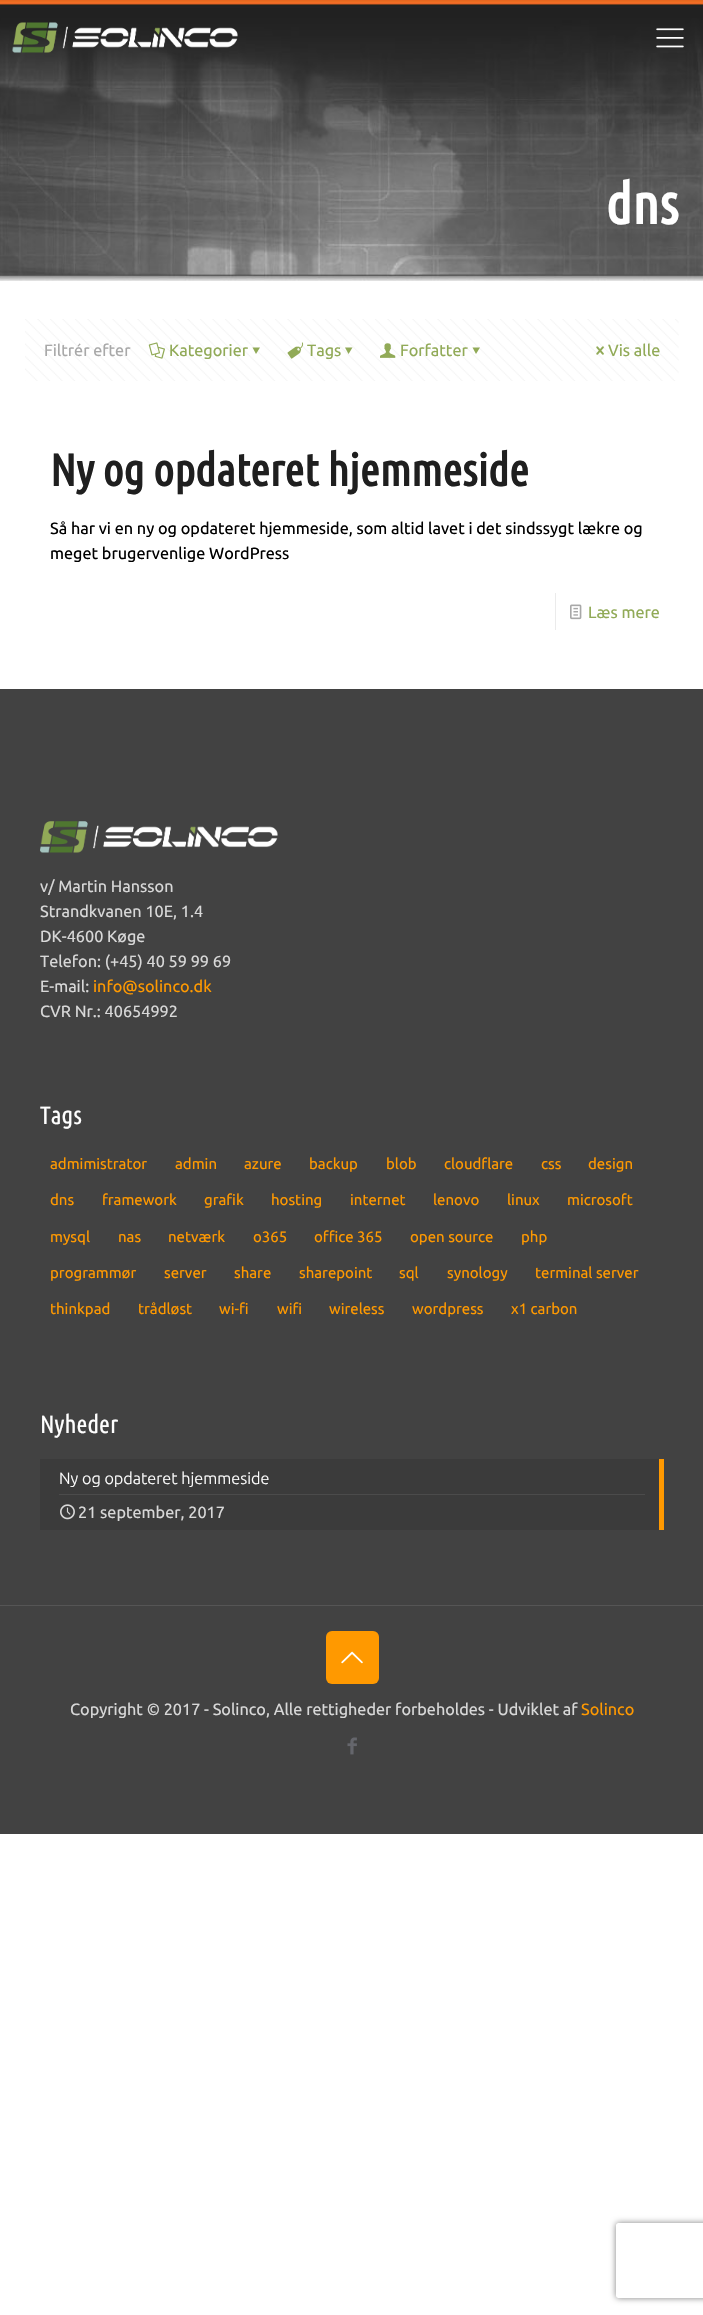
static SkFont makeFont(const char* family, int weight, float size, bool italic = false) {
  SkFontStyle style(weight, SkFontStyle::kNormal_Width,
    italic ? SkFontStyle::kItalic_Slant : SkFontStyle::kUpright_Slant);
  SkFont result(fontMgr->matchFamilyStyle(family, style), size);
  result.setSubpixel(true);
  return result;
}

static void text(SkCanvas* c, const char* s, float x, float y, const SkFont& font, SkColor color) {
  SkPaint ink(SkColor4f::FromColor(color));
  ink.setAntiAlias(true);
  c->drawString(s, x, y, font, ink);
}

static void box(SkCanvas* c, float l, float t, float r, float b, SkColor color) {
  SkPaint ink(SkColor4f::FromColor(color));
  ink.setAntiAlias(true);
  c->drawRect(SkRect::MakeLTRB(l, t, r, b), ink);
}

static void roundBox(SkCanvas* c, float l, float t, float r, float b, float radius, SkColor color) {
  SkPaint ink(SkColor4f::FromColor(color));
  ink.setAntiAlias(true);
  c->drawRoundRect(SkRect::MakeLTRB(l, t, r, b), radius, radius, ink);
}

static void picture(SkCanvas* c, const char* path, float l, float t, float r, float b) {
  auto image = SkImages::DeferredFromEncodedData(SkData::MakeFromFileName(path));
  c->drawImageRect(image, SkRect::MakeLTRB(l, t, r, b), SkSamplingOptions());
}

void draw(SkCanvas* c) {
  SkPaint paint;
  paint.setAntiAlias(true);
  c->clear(0xffffffff);
  picture(c, "img_03.png", 0, 0, 703, 281);
  picture(c, "img_01.png", 12, 22, 238, 53);
  picture(c, "img_02.png", 656, 28, 684, 48);
  SkFont face1 = makeFont("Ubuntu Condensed", 700, 56);
  text(c, "dns", 606, 224, face1, 0xffffffff);
  picture(c, "img_04.png", 25, 319, 679, 381);
  SkFont face2 = makeFont("Ubuntu", 400, 16.25f);
  text(c, "Filtrér efter", 44, 356, face2, 0xffa8a8a8);
  picture(c, "img_05.png", 148, 342, 165, 359);
  text(c, "Kategorier", 169, 356, face2, 0xff91aa57);
  paint.setColor(0xff91aa57);
  c->drawPath(SkPathBuilder().moveTo(260, 347.5f).lineTo(256, 354).lineTo(252.5f, 347.5f).close().detach(), paint);
  picture(c, "img_06.png", 287, 342, 304, 359);
  text(c, "Tags", 307, 356, face2, 0xff91aa57);
  c->drawPath(SkPathBuilder().moveTo(352.5f, 347.5f).lineTo(348.5f, 354).lineTo(345, 347.5f).close().detach(), paint);
  picture(c, "img_07.png", 380, 343, 396, 358);
  text(c, "Forfatter", 400, 356, face2, 0xff91aa57);
  c->drawPath(SkPathBuilder().moveTo(480, 347.5f).lineTo(476, 354).lineTo(472.5f, 347.5f).close().detach(), paint);
  picture(c, "img_08.png", 596, 346, 604, 355);
  text(c, "Vis alle", 608, 356, face2, 0xff91aa57);
  SkFont face3 = makeFont("Ubuntu Condensed", 700, 45);
  text(c, "Ny og opdateret hjemmeside", 50, 486, face3, 0xff1f1f1f);
  text(c, "Så har vi en ny og opdateret hjemmeside, som altid lavet i det sindssygt lækre og", 50, 534, face2, 0xff000000);
  text(c, "meget brugervenlige WordPress", 50, 559, face2, 0xff000000);
  box(c, 555, 593, 556, 630, 0xffebebeb);
  picture(c, "img_09.png", 570, 604, 582, 620);
  text(c, "Læs mere", 588, 618, face2, 0xff91aa57);
  box(c, 0, 689, 703, 1834, 0xff424242);
  picture(c, "img_10.png", 40, 821, 278, 853);
  text(c, "v/ Martin Hansson", 40, 892, face2, 0xffd8d8d8);
  text(c, "Strandkvanen 10E, 1.4", 40, 917, face2, 0xffd8d8d8);
  text(c, "DK-4600 Køge", 40, 942, face2, 0xffd8d8d8);
  text(c, "Telefon: (+45) 40 59 99 69", 40, 967, face2, 0xffd8d8d8);
  text(c, "E-mail:", 40, 992, face2, 0xffd8d8d8);
  text(c, "info@solinco.dk", 93, 992, face2, 0xffff9900);
  text(c, "CVR Nr.: 40654992", 40, 1017, face2, 0xffd8d8d8);
  SkFont face4 = makeFont("Ubuntu Condensed", 400, 25);
  text(c, "Tags", 40, 1124, face4, 0xffffffff);
  SkFont face5 = makeFont("Ubuntu", 400, 15);
  text(c, "admimistrator", 50, 1169, face5, 0xffff9900);
  text(c, "admin", 175, 1169, face5, 0xffff9900);
  text(c, "azure", 244, 1169, face5, 0xffff9900);
  text(c, "backup", 309, 1169, face5, 0xffff9900);
  text(c, "blob", 386, 1169, face5, 0xffff9900);
  text(c, "cloudflare", 444, 1169, face5, 0xffff9900);
  text(c, "css", 541, 1169, face5, 0xffff9900);
  text(c, "design", 588, 1169, face5, 0xffff9900);
  text(c, "dns", 50, 1205, face5, 0xffff9900);
  text(c, "framework", 102, 1205, face5, 0xffff9900);
  text(c, "grafik", 204, 1205, face5, 0xffff9900);
  text(c, "hosting", 271, 1205, face5, 0xffff9900);
  text(c, "internet", 350, 1205, face5, 0xffff9900);
  text(c, "lenovo", 433, 1205, face5, 0xffff9900);
  text(c, "linux", 507, 1205, face5, 0xffff9900);
  text(c, "microsoft", 567, 1205, face5, 0xffff9900);
  text(c, "mysql", 50, 1242, face5, 0xffff9900);
  text(c, "nas", 118, 1242, face5, 0xffff9900);
  text(c, "netværk", 168, 1242, face5, 0xffff9900);
  text(c, "o365", 253, 1242, face5, 0xffff9900);
  text(c, "office 365", 314, 1242, face5, 0xffff9900);
  text(c, "open source", 410, 1242, face5, 0xffff9900);
  text(c, "php", 521, 1242, face5, 0xffff9900);
  text(c, "programmør", 50, 1278, face5, 0xffff9900);
  text(c, "server", 164, 1278, face5, 0xffff9900);
  text(c, "share", 234, 1278, face5, 0xffff9900);
  text(c, "sharepoint", 299, 1278, face5, 0xffff9900);
  text(c, "sql", 399, 1278, face5, 0xffff9900);
  text(c, "synology", 447, 1278, face5, 0xffff9900);
  text(c, "terminal server", 535, 1278, face5, 0xffff9900);
  text(c, "thinkpad", 50, 1314, face5, 0xffff9900);
  text(c, "trådløst", 138, 1314, face5, 0xffff9900);
  text(c, "wi-fi", 219, 1314, face5, 0xffff9900);
  text(c, "wifi", 277, 1314, face5, 0xffff9900);
  text(c, "wireless", 329, 1314, face5, 0xffff9900);
  text(c, "wordpress", 412, 1314, face5, 0xffff9900);
  text(c, "x1 carbon", 511, 1314, face5, 0xffff9900);
  text(c, "Nyheder", 40, 1433, face4, 0xffffffff);
  box(c, 40, 1459, 659, 1530, 0xff3b3b3b);
  box(c, 59, 1494, 645, 1495, 0xff4b4b4b);
  SkFont face6 = makeFont("Ubuntu", 300, 16.25f);
  text(c, "Ny og opdateret hjemmeside", 59, 1484, face6, 0xffffffff);
  box(c, 659, 1459, 664, 1530, 0xffff9900);
  picture(c, "img_11.png", 60, 1504, 75, 1520);
  text(c, "21 september, 2017", 78, 1518, face2, 0xffd8d8d8);
  box(c, 0, 1605, 703, 1606, 0xff555555);
  roundBox(c, 326, 1631, 379, 1684, 6, 0xffff9900);
  picture(c, "img_12.png", 341, 1651, 363, 1664);
  text(c, "Copyright © 2017 - Solinco, Alle rettigheder forbeholdes - Udviklet af", 70, 1715, face2, 0xffd8d8d8);
  text(c, "Solinco", 581, 1715, face2, 0xffff9900);
  picture(c, "img_13.png", 347, 1737, 357, 1755);
  c->save();
  c->clipPath(SkPathBuilder(SkPathFillType::kEvenOdd).moveTo(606, 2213).lineTo(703, 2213).lineTo(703, 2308).lineTo(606, 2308).close().moveTo(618.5f, 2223).lineTo(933.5f, 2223).cubicTo(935, 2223, 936, 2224, 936, 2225.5f).lineTo(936, 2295.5f).cubicTo(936, 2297, 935, 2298, 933.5f, 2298).lineTo(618.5f, 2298).cubicTo(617, 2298, 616, 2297, 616, 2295.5f).lineTo(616, 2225.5f).cubicTo(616, 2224, 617, 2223, 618.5f, 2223).close().detach(), true);
  paint.setColor(0xff808080);
  paint.setMaskFilter(SkMaskFilter::MakeBlur(kNormal_SkBlurStyle, 3));
  c->drawRoundRect(SkRect::MakeLTRB(616, 2223, 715, 2298), 2.5f, 2.5f, paint);
  paint.setMaskFilter(nullptr);
  c->restore();
}
